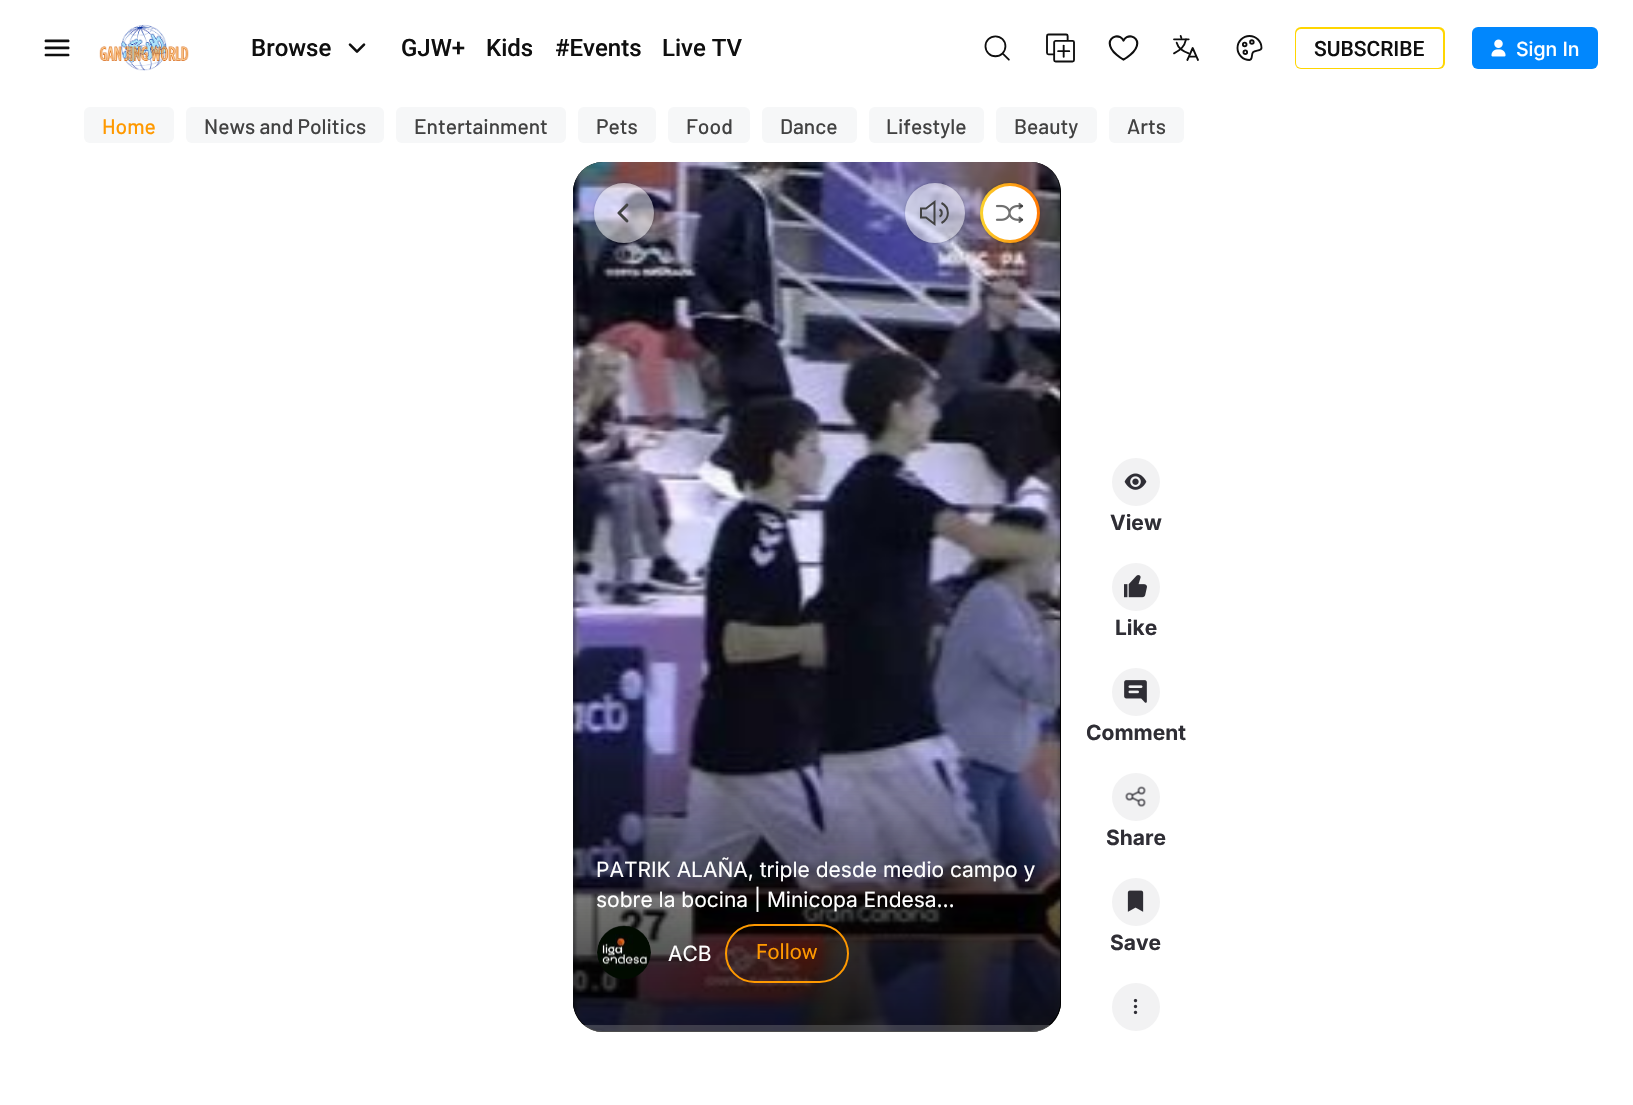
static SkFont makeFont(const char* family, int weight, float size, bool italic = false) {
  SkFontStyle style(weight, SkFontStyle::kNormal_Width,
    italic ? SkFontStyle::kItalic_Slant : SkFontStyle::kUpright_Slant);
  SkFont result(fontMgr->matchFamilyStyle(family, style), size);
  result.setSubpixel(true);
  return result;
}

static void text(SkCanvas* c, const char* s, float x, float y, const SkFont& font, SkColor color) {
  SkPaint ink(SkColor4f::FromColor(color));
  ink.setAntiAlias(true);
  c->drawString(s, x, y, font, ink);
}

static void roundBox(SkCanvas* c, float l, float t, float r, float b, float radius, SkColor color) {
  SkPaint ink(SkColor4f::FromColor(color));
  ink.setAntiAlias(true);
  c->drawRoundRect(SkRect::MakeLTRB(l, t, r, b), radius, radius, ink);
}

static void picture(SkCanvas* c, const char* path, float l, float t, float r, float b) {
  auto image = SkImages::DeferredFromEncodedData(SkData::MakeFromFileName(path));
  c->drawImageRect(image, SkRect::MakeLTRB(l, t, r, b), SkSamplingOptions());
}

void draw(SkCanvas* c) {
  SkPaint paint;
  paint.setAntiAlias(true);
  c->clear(0xffffffff);
  picture(c, "img_01.png", 44, 39, 70, 57);
  picture(c, "img_02.png", 99, 24, 189, 71);
  SkFont face1 = makeFont("Roboto", 500, 24);
  text(c, "Browse", 251, 56, face1, 0xff0f0f0f);
  picture(c, "img_03.png", 348, 43, 366, 53);
  text(c, "GJW+", 401, 56, face1, 0xff0f0f0f);
  text(c, "Kids", 486, 56, face1, 0xff0f0f0f);
  text(c, "#Events", 555, 56, face1, 0xff0f0f0f);
  text(c, "Live TV", 662, 56, face1, 0xff0f0f0f);
  picture(c, "img_04.png", 984, 35, 1010, 61);
  picture(c, "img_05.png", 1046, 33, 1075, 63);
  picture(c, "img_06.png", 1108, 35, 1139, 61);
  picture(c, "img_07.png", 1173, 35, 1199, 61);
  picture(c, "img_08.png", 1236, 35, 1263, 61);
  {
    const SkColor colors[] = {0xffff9900, 0xffffd600, 0xffffd601};
    const float stops[] = {0.01f, 0.01f, 1};
    const SkPoint ends[] = {{1322, 96}, {1417, -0.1f}};
    paint.setShader(SkGradientShader::MakeLinear(ends, colors, stops, 3, SkTileMode::kClamp));
    paint.setAlpha(255);
  }
  c->drawRoundRect(SkRect::MakeLTRB(1295, 27, 1445, 69), 6, 6, paint);
  roundBox(c, 1296, 29, 1443, 68, 5, 0xffffffff);
  SkFont face2 = makeFont("Roboto", 500, 21);
  text(c, "SUBSCRIBE", 1314, 56, face2, 0xff0f0f0f);
  roundBox(c, 1472, 27, 1598, 69, 6, 0xff0187fd);
  picture(c, "img_09.png", 1491, 39, 1506, 57);
  SkFont face3 = makeFont("Inter", 500, 19.5f);
  text(c, "Sign In", 1516, 56, face3, 0xffffffff);
  roundBox(c, 84, 107, 174, 143, 6, 0xfff6f7f8);
  SkFont face4 = makeFont("Barlow", 500, 21);
  text(c, "Home", 102, 134, face4, 0xffff9900);
  roundBox(c, 186, 107, 384, 143, 6, 0xfff6f7f8);
  text(c, "News and Politics", 204, 134, face4, 0xff424242);
  roundBox(c, 396, 107, 566, 143, 6, 0xfff6f7f8);
  text(c, "Entertainment", 414, 134, face4, 0xff424242);
  roundBox(c, 578, 107, 656, 143, 6, 0xfff6f7f8);
  text(c, "Pets", 596, 134, face4, 0xff424242);
  roundBox(c, 668, 107, 750, 143, 6, 0xfff6f7f8);
  text(c, "Food", 686, 134, face4, 0xff424242);
  roundBox(c, 762, 107, 857, 143, 6, 0xfff6f7f8);
  text(c, "Dance", 780, 134, face4, 0xff424242);
  roundBox(c, 869, 107, 984, 143, 6, 0xfff6f7f8);
  text(c, "Lifestyle", 886, 134, face4, 0xff424242);
  roundBox(c, 996, 107, 1097, 143, 6, 0xfff6f7f8);
  text(c, "Beauty", 1014, 134, face4, 0xff424242);
  roundBox(c, 1109, 107, 1184, 143, 6, 0xfff6f7f8);
  text(c, "Arts", 1127, 134, face4, 0xff424242);
  roundBox(c, 573, 162, 1061, 1031, 30, 0xff000000);
  picture(c, "img_10.png", 573, 162, 1061, 1019);
  roundBox(c, 573, 164, 1061, 1032, 30, 0xff000000);
  picture(c, "img_11.png", 573, 164, 1061, 1031);
  {
    const SkColor colors[] = {0x66000000, 0x00000000};
    const float stops[] = {0, 1};
    const SkPoint ends[] = {{817, 1031}, {817, 731}};
    paint.setShader(SkGradientShader::MakeLinear(ends, colors, stops, 2, SkTileMode::kClamp));
    paint.setAlpha(255);
  }
  c->drawPath(SkPathBuilder().moveTo(573, 732).lineTo(1061, 732).lineTo(1061, 1002).cubicTo(1061, 1018.5f, 1047.5f, 1032, 1031, 1032).lineTo(603, 1032).cubicTo(586.5f, 1032, 573, 1018.5f, 573, 1002).close().detach(), paint);
  c->drawPath(SkPathBuilder().moveTo(573, 732).lineTo(1061, 732).lineTo(1061, 1002).cubicTo(1061, 1018.5f, 1047.5f, 1032, 1031, 1032).lineTo(603, 1032).cubicTo(586.5f, 1032, 573, 1018.5f, 573, 1002).close().detach(), paint);
  c->save();
  c->clipPath(SkPathBuilder().moveTo(603, 164).lineTo(1031, 164).cubicTo(1047.5f, 164, 1061, 177.5f, 1061, 194).lineTo(1061, 1002).cubicTo(1061, 1018.5f, 1047.5f, 1032, 1031, 1032).lineTo(603, 1032).cubicTo(586.5f, 1032, 573, 1018.5f, 573, 1002).lineTo(573, 194).cubicTo(573, 177.5f, 586.5f, 164, 603, 164).close().detach(), true);
  roundBox(c, 573, 1025, 1061, 1032, 3, 0x4dffffff);
  c->restore();
  c->drawPath(SkPathBuilder().moveTo(573, 731).lineTo(1061, 731).lineTo(1061, 1001).cubicTo(1061, 1017.5f, 1047.5f, 1031, 1031, 1031).lineTo(603, 1031).cubicTo(586.5f, 1031, 573, 1017.5f, 573, 1001).close().detach(), paint);
  c->save();
  c->clipPath(SkPathBuilder(SkPathFillType::kEvenOdd).moveTo(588, 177).lineTo(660, 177).lineTo(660, 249).lineTo(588, 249).close().moveTo(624, 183).cubicTo(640.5f, 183, 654, 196.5f, 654, 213).cubicTo(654, 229.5f, 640.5f, 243, 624, 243).cubicTo(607.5f, 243, 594, 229.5f, 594, 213).cubicTo(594, 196.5f, 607.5f, 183, 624, 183).close().detach(), true);
  paint.setShader(nullptr);
  paint.setColor(0x40000000);
  paint.setMaskFilter(SkMaskFilter::MakeBlur(kNormal_SkBlurStyle, 1.5f));
  c->drawRoundRect(SkRect::MakeLTRB(594, 183, 654, 243), 30, 30, paint);
  paint.setMaskFilter(nullptr);
  c->restore();
  paint.setColor(0x80ffffff);
  c->drawCircle(624, 213, 30, paint);
  picture(c, "img_12.png", 617, 203, 629, 223);
  c->save();
  c->clipPath(SkPathBuilder(SkPathFillType::kEvenOdd).moveTo(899, 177).lineTo(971, 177).lineTo(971, 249).lineTo(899, 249).close().moveTo(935, 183).cubicTo(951.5f, 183, 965, 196.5f, 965, 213).cubicTo(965, 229.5f, 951.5f, 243, 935, 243).cubicTo(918.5f, 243, 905, 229.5f, 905, 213).cubicTo(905, 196.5f, 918.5f, 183, 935, 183).close().detach(), true);
  paint.setColor(0x40000000);
  paint.setMaskFilter(SkMaskFilter::MakeBlur(kNormal_SkBlurStyle, 1.5f));
  c->drawRoundRect(SkRect::MakeLTRB(905, 183, 965, 243), 30, 30, paint);
  paint.setMaskFilter(nullptr);
  c->restore();
  paint.setColor(0x80ffffff);
  c->drawCircle(935, 213, 30, paint);
  paint.setStyle(SkPaint::kStroke_Style);
  paint.setStrokeWidth(2);
  paint.setColor(0xff424242);
  c->drawPath(SkPathBuilder().moveTo(939.5f, 209.5f).cubicTo(942.5f, 210.5f, 942.5f, 215.5f, 939.5f, 216.5f).moveTo(941.5f, 203).cubicTo(950, 207.5f, 950, 218.5f, 941.5f, 223).moveTo(921, 208.5f).lineTo(921, 217.5f).lineTo(926, 217.5f).lineTo(934.5f, 224).lineTo(934.5f, 202).lineTo(926, 208.5f).close().detach(), paint);
  paint.setStyle(SkPaint::kFill_Style);
  paint.setColor(0x40000000);
  paint.setMaskFilter(SkMaskFilter::MakeBlur(kNormal_SkBlurStyle, 1.5f));
  c->drawRoundRect(SkRect::MakeLTRB(980, 183, 1040, 243), 30, 30, paint);
  paint.setMaskFilter(nullptr);
  {
    const SkColor colors[] = {0xfffcd32d, 0xffff7600};
    const float stops[] = {0, 1};
    const SkPoint ends[] = {{980, 213}, {1040, 213}};
    paint.setShader(SkGradientShader::MakeLinear(ends, colors, stops, 2, SkTileMode::kClamp));
    paint.setAlpha(255);
  }
  c->drawCircle(1010, 213, 30, paint);
  paint.setShader(nullptr);
  paint.setColor(0xffffffff);
  c->drawCircle(1010, 213, 27, paint);
  picture(c, "img_13.png", 995, 202, 1024, 223);
  SkFont face5 = makeFont("Inter", 400, 21);
  text(c, "PATRIK ALAÑA, triple desde medio campo y", 596, 877, face5, 0xffffffff);
  text(c, "sobre la bocina | Minicopa Endesa…", 596, 907, face5, 0xffffffff);
  picture(c, "img_14.png", 597, 925, 651, 979);
  text(c, "ACB", 668, 961, face5, 0xffffffff);
  paint.setStyle(SkPaint::kStroke_Style);
  paint.setColor(0xffff9900);
  c->drawRoundRect(SkRect::MakeLTRB(726, 925, 848, 982), 28.5f, 28.5f, paint);
  SkFont face6 = makeFont("Roboto", 400, 21);
  text(c, "Follow", 756, 959, face6, 0xffff9900);
  paint.setStyle(SkPaint::kFill_Style);
  paint.setColor(0xfff2f2f3);
  c->drawCircle(1136, 482, 24, paint);
  picture(c, "img_15.png", 1124, 473, 1147, 490);
  SkFont face7 = makeFont("Inter", 700, 21);
  text(c, "View", 1110, 530, face7, 0xff2f2e35);
  c->drawCircle(1136, 587, 24, paint);
  picture(c, "img_16.png", 1124, 575, 1147, 598);
  text(c, "Like", 1115, 635, face7, 0xff2f2e35);
  c->drawCircle(1136, 692, 24, paint);
  picture(c, "img_17.png", 1124, 680, 1147, 703);
  text(c, "Comment", 1086, 740, face7, 0xff2f2e35);
  c->drawCircle(1136, 797, 24, paint);
  picture(c, "img_18.png", 1125, 786, 1146, 807);
  text(c, "Share", 1106, 845, face7, 0xff2f2e35);
  c->drawCircle(1136, 902, 24, paint);
  picture(c, "img_19.png", 1127, 890, 1144, 912);
  text(c, "Save", 1110, 950, face7, 0xff2f2e35);
  c->drawCircle(1136, 1007, 24, paint);
  picture(c, "img_20.png", 1133, 998, 1138, 1015);
}
